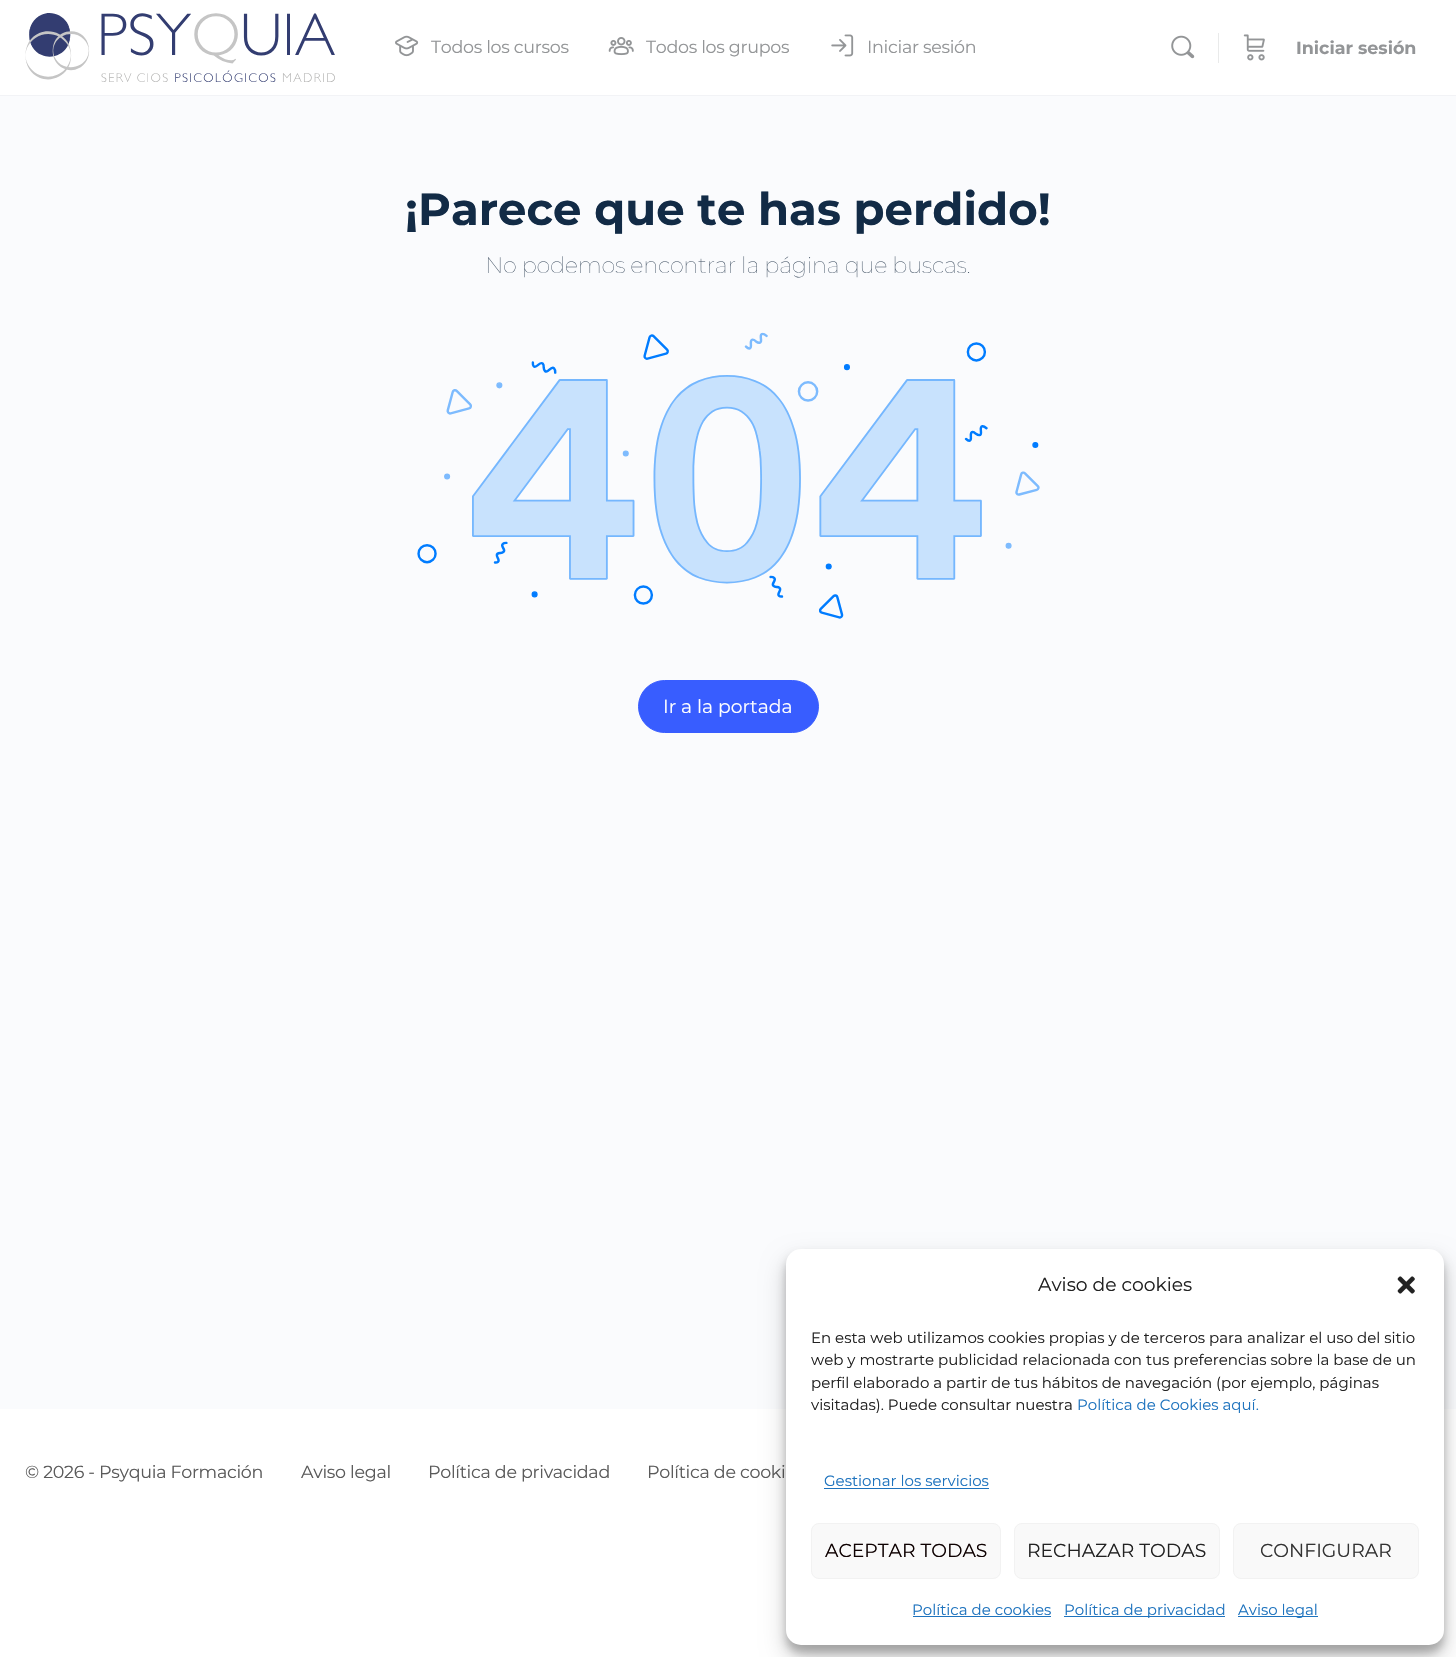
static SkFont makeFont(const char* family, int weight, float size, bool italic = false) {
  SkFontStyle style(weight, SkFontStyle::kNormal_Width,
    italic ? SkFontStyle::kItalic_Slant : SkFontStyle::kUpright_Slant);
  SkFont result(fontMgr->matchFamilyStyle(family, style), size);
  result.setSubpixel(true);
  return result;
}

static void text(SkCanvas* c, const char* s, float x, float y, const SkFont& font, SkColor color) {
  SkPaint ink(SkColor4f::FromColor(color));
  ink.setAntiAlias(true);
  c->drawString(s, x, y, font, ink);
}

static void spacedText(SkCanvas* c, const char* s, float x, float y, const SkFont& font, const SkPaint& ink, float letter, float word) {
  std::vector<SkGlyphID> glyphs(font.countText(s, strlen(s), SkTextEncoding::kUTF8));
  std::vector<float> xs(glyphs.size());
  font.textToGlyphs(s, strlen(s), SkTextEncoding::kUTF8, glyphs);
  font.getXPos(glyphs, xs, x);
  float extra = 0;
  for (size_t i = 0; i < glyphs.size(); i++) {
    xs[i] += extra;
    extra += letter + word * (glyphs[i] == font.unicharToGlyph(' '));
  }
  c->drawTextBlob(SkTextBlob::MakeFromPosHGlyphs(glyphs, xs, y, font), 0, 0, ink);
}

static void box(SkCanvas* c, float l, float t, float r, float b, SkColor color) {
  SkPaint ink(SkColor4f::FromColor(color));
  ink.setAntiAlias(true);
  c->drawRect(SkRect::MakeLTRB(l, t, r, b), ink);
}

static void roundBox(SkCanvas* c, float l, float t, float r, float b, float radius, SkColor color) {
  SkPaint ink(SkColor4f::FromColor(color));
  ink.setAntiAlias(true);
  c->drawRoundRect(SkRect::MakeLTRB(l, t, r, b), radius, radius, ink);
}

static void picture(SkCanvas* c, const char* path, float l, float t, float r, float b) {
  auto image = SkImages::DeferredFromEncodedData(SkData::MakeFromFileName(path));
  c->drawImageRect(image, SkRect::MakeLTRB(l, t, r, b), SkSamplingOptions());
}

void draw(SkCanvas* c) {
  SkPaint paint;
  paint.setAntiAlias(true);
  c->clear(0xfffafbfd);
  box(c, 0, 95, 1456, 96, 0xfff2f3f6);
  box(c, 0, 0, 1456, 95, 0xffffffff);
  picture(c, "img_01.png", 25, 13, 335, 82);
  picture(c, "img_02.png", 395, 35, 419, 57);
  SkFont face1 = makeFont("Montserrat", 400, 17.5f);
  paint.setColor(0xff939597);
  spacedText(c, "Todos los cursos", 431, 53, face1, paint, -0.3f, 0);
  picture(c, "img_03.png", 608, 37, 634, 56);
  spacedText(c, "Todos los grupos", 646, 53, face1, paint, -0.3f, 0);
  picture(c, "img_04.png", 831, 34, 854, 57);
  spacedText(c, "Iniciar sesión", 867, 53, face1, paint, -0.3f, 0);
  picture(c, "img_05.png", 1171, 35, 1195, 59);
  box(c, 1218, 33, 1219, 63, 0xffe9eaea);
  picture(c, "img_06.png", 1243, 34, 1265, 61);
  SkFont face2 = makeFont("Montserrat", 700, 17.5f);
  text(c, "Iniciar sesión", 1296, 54, face2, 0xff939597);
  SkFont face3 = makeFont("Montserrat", 700, 45);
  text(c, "¡Parece que te has perdido!", 405, 225, face3, 0xff122b46);
  SkFont face4 = makeFont("Montserrat", 100, 22.5f);
  paint.setColor(0xff4d5c6d);
  spacedText(c, "No podemos encontrar la página que buscas.", 485, 273, face4, paint, -0.3f, 0);
  picture(c, "img_07.png", 417, 332, 1040, 619);
  paint.setColor(0xff385dff);
  c->drawRoundRect(SkRect::MakeLTRB(638.5f, 680.5f, 818.5f, 732.5f), 26, 26, paint);
  paint.setStyle(SkPaint::kStroke_Style);
  paint.setStrokeWidth(1);
  c->drawRoundRect(SkRect::MakeLTRB(638.5f, 680.5f, 818.5f, 732.5f), 26, 26, paint);
  SkFont face5 = makeFont("Montserrat", 400, 18.75f);
  text(c, "Ir a la portada", 663, 713, face5, 0xffffffff);
  box(c, 0, 1409, 1456, 1657, 0xffffffff);
  paint.setStyle(SkPaint::kFill_Style);
  paint.setColor(0xff5a5a5a);
  spacedText(c, "© 2026 - Psyquia Formación", 25, 1478, face1, paint, -0.3f, 0);
  spacedText(c, "Aviso legal", 301, 1478, face1, paint, -0.3f, 0);
  spacedText(c, "Política de privacidad", 428, 1478, face1, paint, -0.3f, 0);
  spacedText(c, "Política de cooki", 647, 1478, face1, paint, -0.3f, 0);
  paint.setColor(0x3b000000);
  paint.setMaskFilter(SkMaskFilter::MakeBlur(kNormal_SkBlurStyle, 4));
  c->drawRoundRect(SkRect::MakeLTRB(786, 1256, 1444, 1653), 15, 15, paint);
  paint.setMaskFilter(nullptr);
  paint.setColor(0x30000000);
  paint.setMaskFilter(SkMaskFilter::MakeBlur(kNormal_SkBlurStyle, 12.5f));
  c->drawRoundRect(SkRect::MakeLTRB(786, 1261, 1444, 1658), 15, 15, paint);
  paint.setMaskFilter(nullptr);
  roundBox(c, 786, 1249, 1444, 1645, 15, 0xffffffff);
  text(c, "Aviso de cookies", 1038, 1291, face5, 0xff222222);
  picture(c, "img_08.png", 1397, 1276, 1415, 1294);
  SkFont face6 = makeFont("Montserrat", 400, 15);
  text(c, "En esta web utilizamos cookies propias y de terceros para analizar el uso del sitio", 811, 1343, face6, 0xff222222);
  text(c, "web y mostrarte publicidad relacionada con tus preferencias sobre la base de un", 811, 1365, face6, 0xff222222);
  text(c, "perfil elaborado a partir de tus hábitos de navegación (por ejemplo, páginas", 811, 1388, face6, 0xff222222);
  text(c, "visitadas). Puede consultar nuestra", 811, 1410, face6, 0xff222222);
  text(c, "Política de Cookies aquí.", 1077, 1410, face6, 0xff1e73be);
  text(c, "Gestionar los servicios", 824, 1486, face6, 0xff1e73be);
  box(c, 824, 1488, 989, 1489, 0xff1e73be);
  paint.setColor(0xfff9f9f9);
  c->drawRoundRect(SkRect::MakeLTRB(811.5f, 1523.5f, 1000.5f, 1578.5f), 7.5f, 7.5f, paint);
  paint.setStyle(SkPaint::kStroke_Style);
  paint.setColor(0xfff2f2f2);
  c->drawRoundRect(SkRect::MakeLTRB(811.5f, 1523.5f, 1000.5f, 1578.5f), 7.5f, 7.5f, paint);
  text(c, "ACEPTAR TODAS", 825, 1557, face5, 0xff0e0101);
  paint.setStyle(SkPaint::kFill_Style);
  paint.setColor(0xfff9f9f9);
  c->drawRoundRect(SkRect::MakeLTRB(1014.5f, 1523.5f, 1219.5f, 1578.5f), 7.5f, 7.5f, paint);
  paint.setStyle(SkPaint::kStroke_Style);
  paint.setColor(0xfff2f2f2);
  c->drawRoundRect(SkRect::MakeLTRB(1014.5f, 1523.5f, 1219.5f, 1578.5f), 7.5f, 7.5f, paint);
  text(c, "RECHAZAR TODAS", 1027, 1557, face5, 0xff222222);
  paint.setStyle(SkPaint::kFill_Style);
  paint.setColor(0xfff9f9f9);
  c->drawRoundRect(SkRect::MakeLTRB(1233.5f, 1523.5f, 1418.5f, 1578.5f), 7.5f, 7.5f, paint);
  paint.setStyle(SkPaint::kStroke_Style);
  paint.setColor(0xfff2f2f2);
  c->drawRoundRect(SkRect::MakeLTRB(1233.5f, 1523.5f, 1418.5f, 1578.5f), 7.5f, 7.5f, paint);
  text(c, "CONFIGURAR", 1260, 1557, face5, 0xff333333);
  text(c, "Política de cookies", 912, 1615, face6, 0xff1e73be);
  box(c, 913, 1616, 1051, 1617, 0xff1e73be);
  box(c, 1064, 1616, 1225, 1617, 0xff1e73be);
  text(c, "Política de privacidad", 1064, 1615, face6, 0xff1e73be);
  box(c, 1238, 1616, 1318, 1617, 0xff1e73be);
  text(c, "Aviso legal", 1238, 1615, face6, 0xff1e73be);
}
